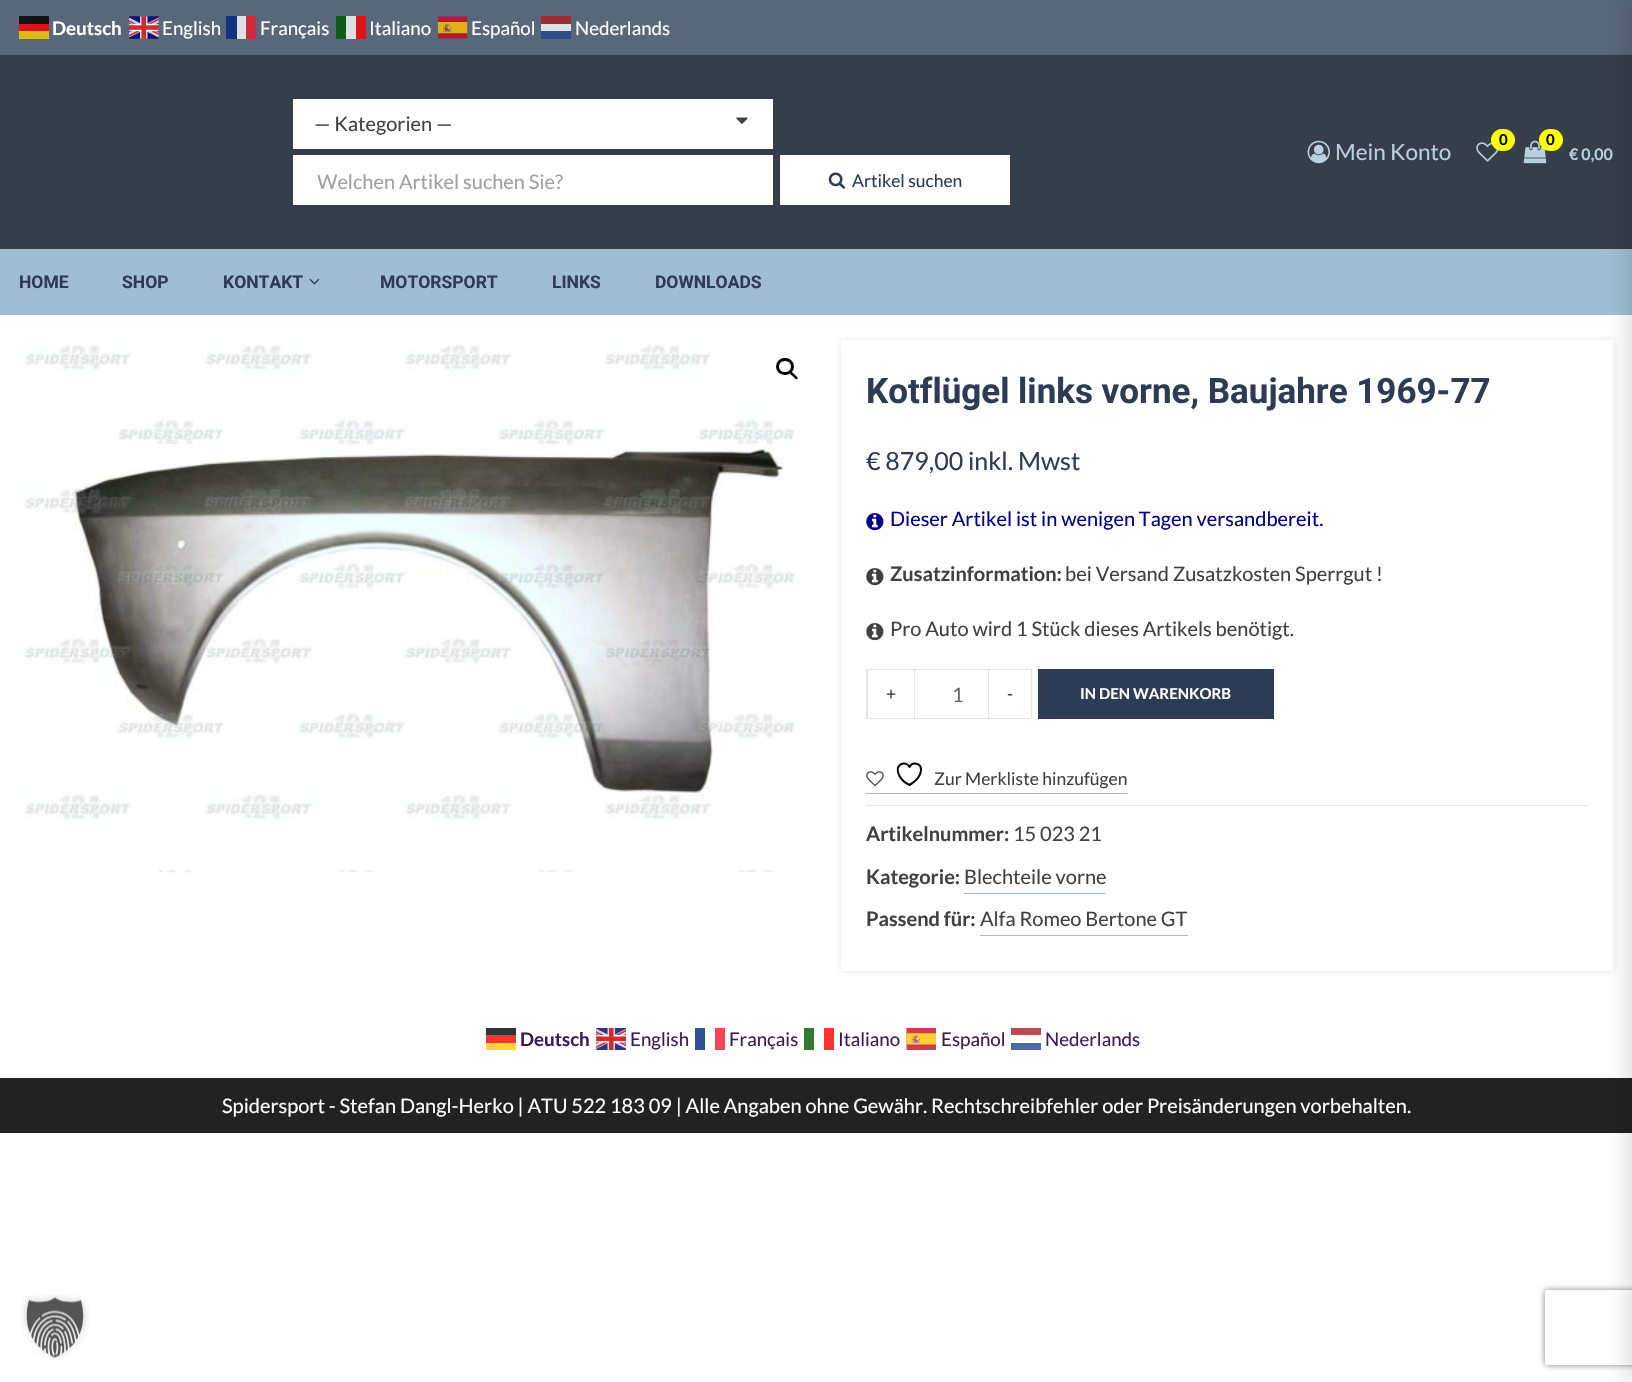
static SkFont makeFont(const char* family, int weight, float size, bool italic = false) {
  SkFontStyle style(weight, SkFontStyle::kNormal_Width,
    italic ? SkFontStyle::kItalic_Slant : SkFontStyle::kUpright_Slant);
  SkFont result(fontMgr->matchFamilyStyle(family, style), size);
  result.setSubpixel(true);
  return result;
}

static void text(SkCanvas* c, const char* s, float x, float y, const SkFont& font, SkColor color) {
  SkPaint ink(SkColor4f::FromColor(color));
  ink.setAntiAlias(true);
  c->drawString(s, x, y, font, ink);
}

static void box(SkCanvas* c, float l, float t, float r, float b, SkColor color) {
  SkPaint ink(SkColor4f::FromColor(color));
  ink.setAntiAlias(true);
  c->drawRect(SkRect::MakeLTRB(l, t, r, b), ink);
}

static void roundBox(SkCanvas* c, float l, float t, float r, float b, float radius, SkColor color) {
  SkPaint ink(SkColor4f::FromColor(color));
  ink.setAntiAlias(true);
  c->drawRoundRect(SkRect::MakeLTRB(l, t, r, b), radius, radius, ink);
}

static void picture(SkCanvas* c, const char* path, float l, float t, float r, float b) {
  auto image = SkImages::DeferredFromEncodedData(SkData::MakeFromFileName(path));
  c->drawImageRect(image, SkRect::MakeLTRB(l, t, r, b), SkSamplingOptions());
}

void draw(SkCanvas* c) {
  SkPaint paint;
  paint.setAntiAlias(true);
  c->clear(0xffffffff);
  box(c, 0, 0, 1632, 55, 0xff58677a);
  box(c, 0, 55, 1632, 249, 0xff373e4b);
  box(c, 0, 249, 1632, 315, 0xffa1bdd2);
  paint.setColor(0x1a000000);
  paint.setMaskFilter(SkMaskFilter::MakeBlur(kNormal_SkBlurStyle, 3));
  c->drawRect(SkRect::MakeLTRB(841, 340, 1614, 971), paint);
  paint.setMaskFilter(nullptr);
  box(c, 841, 340, 1614, 971, 0xffffffff);
  box(c, 0, 1078, 1632, 1133, 0xff222222);
  paint.setMaskFilter(SkMaskFilter::MakeBlur(kNormal_SkBlurStyle, 9.5f));
  c->drawRect(SkRect::MakeLTRB(1624, 0, 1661, 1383), paint);
  paint.setMaskFilter(nullptr);
  box(c, 19, 16, 49, 24, 0xff121518);
  box(c, 19, 24, 49, 31, 0xffde1518);
  SkFont face1 = makeFont("Lato", 700, 18.75f);
  text(c, "Deutsch", 52, 35, face1, 0xffffffff);
  box(c, 19, 31, 49, 39, 0xffdeb818);
  picture(c, "img_01.png", 129, 16, 159, 39);
  SkFont face2 = makeFont("Lato", 400, 18.75f);
  text(c, "English", 162, 35, face2, 0xffffffff);
  box(c, 226, 16, 237, 39, 0xff12337e);
  box(c, 237, 16, 246, 39, 0xffdee1e4);
  box(c, 246, 16, 256, 39, 0xffd4283f);
  text(c, "Français", 260, 35, face2, 0xffffffff);
  box(c, 336, 16, 346, 39, 0xff125a18);
  box(c, 346, 16, 356, 39, 0xffdee1e4);
  box(c, 356, 16, 366, 39, 0xffdb1518);
  text(c, "Italiano", 369, 35, face2, 0xffffffff);
  picture(c, "img_02.png", 438, 16, 468, 39);
  text(c, "Español", 471, 35, face2, 0xffffffff);
  box(c, 541, 16, 571, 24, 0xff9d2b38);
  box(c, 541, 24, 571, 31, 0xffdee1e4);
  text(c, "Nederlands", 575, 35, face2, 0xffffffff);
  box(c, 541, 31, 571, 39, 0xff2c4d88);
  box(c, 293, 99, 773, 149, 0xffffffff);
  SkFont face3 = makeFont("Lato", 400, 20);
  text(c, "— Kategorien —", 314, 131, face3, 0xff404040);
  picture(c, "img_03.png", 736, 117, 748, 124);
  box(c, 293, 155, 773, 205, 0xffffffff);
  c->save();
  c->clipRect(SkRect::MakeLTRB(318, 169, 761, 193));
  text(c, "Welchen Artikel suchen Sie?", 317, 189, face3, 0xffa0a0a0);
  c->restore();
  box(c, 781, 155, 1010, 205, 0xffffffff);
  box(c, 780, 155, 781, 205, 0xfff5f5f5);
  picture(c, "img_04.png", 828, 172, 845, 189);
  SkFont face4 = makeFont("Lato", 400, 17.5f);
  text(c, "Artikel suchen", 852, 187, face4, 0xff2d3b55);
  picture(c, "img_05.png", 1307, 140, 1330, 164);
  SkFont face5 = makeFont("Lato", 400, 22.5f);
  text(c, "Mein Konto", 1335, 160, face5, 0xffb9cfdd);
  picture(c, "img_06.png", 1476, 142, 1499, 162);
  roundBox(c, 1491, 129, 1515, 151, 11, 0xffffff00);
  SkFont face6 = makeFont("Lato", 700, 15);
  text(c, "0", 1499, 145, face6, 0xff000000);
  picture(c, "img_07.png", 1523, 140, 1547, 164);
  roundBox(c, 1539, 129, 1563, 151, 11, 0xffffff00);
  text(c, "0", 1546, 145, face6, 0xff000000);
  SkFont face7 = makeFont("Lato", 700, 16);
  text(c, "€ 0,00", 1569, 160, face7, 0xffb9cfdd);
  SkFont face8 = makeFont("Roboto", 700, 17.5f);
  text(c, "HOME", 19, 288, face8, 0xff2d3b55);
  text(c, "SHOP", 122, 288, face8, 0xff2d3b55);
  text(c, "KONTAKT", 223, 288, face8, 0xff2d3b55);
  picture(c, "img_08.png", 309, 278, 320, 285);
  text(c, "MOTORSPORT", 380, 288, face8, 0xff2d3b55);
  text(c, "LINKS", 552, 288, face8, 0xff2d3b55);
  text(c, "DOWNLOADS", 655, 288, face8, 0xff2d3b55);
  picture(c, "img_09.png", 19, 340, 795, 873);
  paint.setStyle(SkPaint::kStroke_Style);
  paint.setStrokeWidth(3);
  paint.setColor(0xff000000);
  c->drawRoundRect(SkRect::MakeLTRB(777.5f, 359.5f, 792.5f, 373.5f), 7, 7, paint);
  paint.setStyle(SkPaint::kFill_Style);
  c->drawPath(SkPathBuilder().moveTo(790, 372).cubicTo(791.5f, 370.5f, 794, 374, 794.5f, 374.5f).cubicTo(795.5f, 375.5f, 798.5f, 377.5f, 797.5f, 379).cubicTo(796, 380.5f, 793.5f, 377, 793, 376.5f).cubicTo(792, 375.5f, 789, 373.5f, 790, 372).close().detach(), paint);
  SkFont face9 = makeFont("Roboto", 700, 35);
  text(c, "Kotflügel links vorne, Baujahre 1969-77", 866, 403, face9, 0xff2d3b55);
  SkFont face10 = makeFont("Lato", 400, 25);
  text(c, "€ 879,00 inkl. Mwst", 866, 470, face10, 0xff2d3b55);
  picture(c, "img_10.png", 866, 513, 884, 531);
  text(c, "Dieser Artikel ist in wenigen Tagen versandbereit.", 890, 526, face3, 0xff00008b);
  picture(c, "img_11.png", 866, 568, 884, 586);
  SkFont face11 = makeFont("Lato", 700, 20);
  text(c, "Zusatzinformation:", 890, 581, face11, 0xff404040);
  text(c, "bei Versand Zusatzkosten Sperrgut !", 1065, 581, face3, 0xff404040);
  picture(c, "img_11.png", 866, 623, 884, 641);
  text(c, "Pro Auto wird 1 Stück dieses Artikels benötigt.", 890, 636, face3, 0xff404040);
  paint.setColor(0xffe6e6e6);
  c->drawPath(SkPathBuilder().moveTo(866, 669).lineTo(915, 669).lineTo(915, 670).lineTo(868, 670).close().moveTo(915, 719).lineTo(866, 719).lineTo(868, 718).lineTo(915, 718).close().detach(), paint);
  paint.setColor(0x1a000000);
  c->drawPath(SkPathBuilder().moveTo(866, 719).lineTo(866, 669).lineTo(868, 670).lineTo(868, 718).close().detach(), paint);
  text(c, "+", 886, 700, face4, 0xff404040);
  paint.setStyle(SkPaint::kStroke_Style);
  paint.setStrokeWidth(1);
  c->drawRect(SkRect::MakeLTRB(914.5f, 669.5f, 988.5f, 718.5f), paint);
  text(c, "1", 952, 702, face3, 0xff666666);
  paint.setStyle(SkPaint::kFill_Style);
  c->drawPath(SkPathBuilder().moveTo(988, 669).lineTo(1032, 669).lineTo(1031, 670).lineTo(988, 670).close().detach(), paint);
  c->drawPath(SkPathBuilder().moveTo(1032, 669).lineTo(1032, 719).lineTo(1031, 718).lineTo(1031, 670).close().detach(), paint);
  c->drawPath(SkPathBuilder().moveTo(1032, 719).lineTo(988, 719).lineTo(988, 718).lineTo(1031, 718).close().detach(), paint);
  text(c, "-", 1007, 700, face4, 0xff404040);
  box(c, 1038, 669, 1274, 719, 0xff2d3b55);
  text(c, "IN DEN WARENKORB", 1080, 699, face6, 0xffffffff);
  picture(c, "img_12.png", 866, 771, 884, 787);
  paint.setStyle(SkPaint::kStroke_Style);
  paint.setStrokeWidth(2);
  paint.setStrokeCap(SkPaint::kRound_Cap);
  paint.setStrokeJoin(SkPaint::kRound_Join);
  paint.setColor(0xff000000);
  c->drawPath(SkPathBuilder().moveTo(921, 769.5f).cubicTo(921, 763, 912, 761.5f, 909.5f, 767).cubicTo(906, 759.5f, 893, 764.5f, 899.5f, 776).cubicTo(901.5f, 780, 905.5f, 783, 909.5f, 785).cubicTo(909.5f, 785, 921, 779, 921, 769.5f).close().detach(), paint);
  text(c, "Zur Merkliste hinzufügen", 934, 785, face4, 0xff404040);
  box(c, 866, 793, 1128, 794, 0xffa1bdd2);
  box(c, 866, 805, 1589, 806, 0xffe6e6e6);
  text(c, "Artikelnummer:", 866, 841, face11, 0xff404040);
  text(c, "15 023 21", 1013, 841, face3, 0xff404040);
  text(c, "Kategorie:", 866, 884, face11, 0xff404040);
  text(c, "Blechteile vorne", 964, 884, face3, 0xff404040);
  box(c, 964, 893, 1106, 894, 0xffa1bdd2);
  text(c, "Passend für:", 866, 926, face11, 0xff404040);
  text(c, "Alfa Romeo Bertone GT", 980, 926, face3, 0xff404040);
  box(c, 980, 935, 1188, 936, 0xffa1bdd2);
  box(c, 486, 1028, 516, 1035, 0xff333333);
  text(c, "Deutsch", 520, 1046, face1, 0xff3b195b);
  box(c, 486, 1035, 516, 1043, 0xffff3333);
  box(c, 486, 1043, 516, 1050, 0xffffd633);
  picture(c, "img_13.png", 596, 1028, 626, 1050);
  text(c, "English", 630, 1046, face2, 0xff3b195b);
  box(c, 695, 1028, 705, 1050, 0xff335199);
  box(c, 715, 1028, 725, 1050, 0xfff54659);
  text(c, "Français", 729, 1046, face2, 0xff3b195b);
  box(c, 804, 1028, 814, 1050, 0xff337933);
  box(c, 824, 1028, 834, 1050, 0xfffd3333);
  text(c, "Italiano", 838, 1046, face2, 0xff3b195b);
  picture(c, "img_14.png", 906, 1028, 936, 1050);
  text(c, "Español", 941, 1046, face2, 0xff3b195b);
  box(c, 1011, 1028, 1041, 1035, 0xffbe4953);
  text(c, "Nederlands", 1045, 1046, face2, 0xff3b195b);
  box(c, 1011, 1043, 1041, 1050, 0xff4d6ba2);
  text(c, "Spidersport - Stefan Dangl-Herko | ATU 522 183 09 | Alle Angaben ohne Gewähr. Rechtschreibfehler oder Preisänderungen vorbehalten.", 222, 1113, face3, 0xffffffff);
  picture(c, "img_15.png", 21, 1294, 89, 1360);
  c->save();
  c->clipPath(SkPathBuilder(SkPathFillType::kEvenOdd).moveTo(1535, 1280).lineTo(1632, 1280).lineTo(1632, 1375).lineTo(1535, 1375).close().moveTo(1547.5f, 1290).lineTo(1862.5f, 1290).cubicTo(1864, 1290, 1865, 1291, 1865, 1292.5f).lineTo(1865, 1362.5f).cubicTo(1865, 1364, 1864, 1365, 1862.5f, 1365).lineTo(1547.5f, 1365).cubicTo(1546, 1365, 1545, 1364, 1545, 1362.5f).lineTo(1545, 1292.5f).cubicTo(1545, 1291, 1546, 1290, 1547.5f, 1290).close().detach(), true);
  paint.setStyle(SkPaint::kFill_Style);
  paint.setColor(0xff808080);
  paint.setMaskFilter(SkMaskFilter::MakeBlur(kNormal_SkBlurStyle, 3));
  c->drawRoundRect(SkRect::MakeLTRB(1545, 1290, 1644, 1365), 2.5f, 2.5f, paint);
  paint.setMaskFilter(nullptr);
  c->restore();
}
